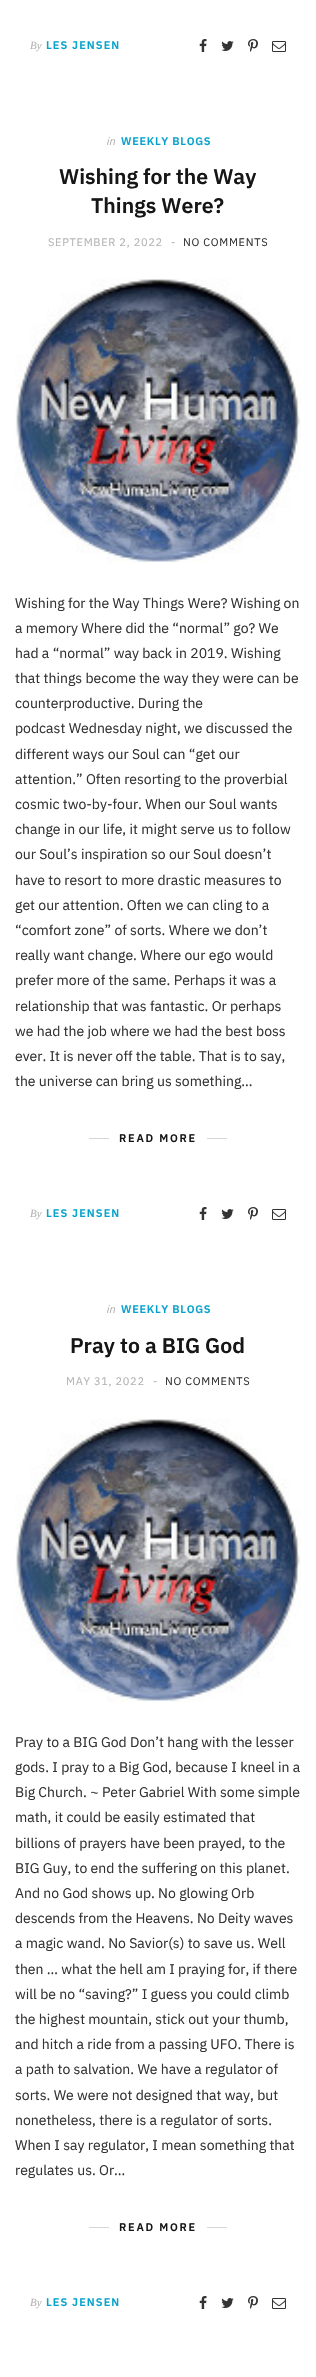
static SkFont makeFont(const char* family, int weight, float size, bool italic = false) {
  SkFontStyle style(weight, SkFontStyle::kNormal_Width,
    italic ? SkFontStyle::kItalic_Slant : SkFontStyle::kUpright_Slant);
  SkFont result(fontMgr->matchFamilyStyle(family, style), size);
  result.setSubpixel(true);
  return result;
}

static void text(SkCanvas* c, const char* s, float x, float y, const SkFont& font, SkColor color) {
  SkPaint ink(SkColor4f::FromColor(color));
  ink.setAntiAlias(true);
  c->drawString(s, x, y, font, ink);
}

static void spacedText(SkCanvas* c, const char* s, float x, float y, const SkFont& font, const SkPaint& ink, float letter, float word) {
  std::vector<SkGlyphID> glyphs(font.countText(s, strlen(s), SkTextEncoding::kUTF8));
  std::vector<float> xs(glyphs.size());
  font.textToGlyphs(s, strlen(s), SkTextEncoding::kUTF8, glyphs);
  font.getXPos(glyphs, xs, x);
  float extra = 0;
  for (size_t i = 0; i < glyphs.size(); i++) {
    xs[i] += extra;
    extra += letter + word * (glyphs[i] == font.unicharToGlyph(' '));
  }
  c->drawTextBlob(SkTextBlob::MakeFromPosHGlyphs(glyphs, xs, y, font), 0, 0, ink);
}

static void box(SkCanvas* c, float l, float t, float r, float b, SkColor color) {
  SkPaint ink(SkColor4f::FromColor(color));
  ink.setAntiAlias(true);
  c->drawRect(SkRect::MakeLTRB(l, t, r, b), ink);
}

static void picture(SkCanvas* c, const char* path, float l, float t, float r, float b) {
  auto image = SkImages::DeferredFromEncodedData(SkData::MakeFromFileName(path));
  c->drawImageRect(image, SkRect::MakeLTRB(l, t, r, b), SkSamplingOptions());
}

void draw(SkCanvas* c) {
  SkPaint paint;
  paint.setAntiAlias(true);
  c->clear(0xffffffff);
  SkFont face1 = makeFont("Liberation Serif", 400, 11, true);
  text(c, "By", 30, 49, face1, 0xffb4b4b4);
  SkFont face2 = makeFont("IBM Plex Sans", 600, 11);
  paint.setColor(0xff07a3cc);
  spacedText(c, "LES JENSEN", 46, 49, face2, paint, 1.1f, 0);
  picture(c, "img_01.png", 199, 39, 207, 52);
  picture(c, "img_02.png", 221, 41, 234, 51);
  picture(c, "img_03.png", 248, 39, 258, 52);
  picture(c, "img_04.png", 272, 41, 286, 52);
  SkFont face3 = makeFont("IBM Plex Sans", 400, 11, true);
  text(c, "in", 106, 145, face3, 0xffb4b4b4);
  spacedText(c, "WEEKLY BLOGS", 121, 145, face2, paint, 0.7f, 0);
  SkFont face4 = makeFont("IBM Plex Sans", 600, 21.25f);
  text(c, "Wishing for the Way", 59, 184, face4, 0xff161616);
  text(c, "Things Were?", 91, 213, face4, 0xff161616);
  SkFont face5 = makeFont("IBM Plex Sans", 400, 11);
  paint.setColor(0xffb4b4b4);
  spacedText(c, "SEPTEMBER 2, 2022", 48, 246, face5, paint, 0.7f, 0);
  text(c, "-", 171, 246, face5, 0xffb4b4b4);
  paint.setColor(0xff333333);
  spacedText(c, "NO COMMENTS", 183, 246, face5, paint, 0.7f, 0);
  picture(c, "img_05.png", 15, 278, 301, 563);
  SkFont face6 = makeFont("IBM Plex Sans", 400, 14);
  text(c, "Wishing for the Way Things Were? Wishing on", 15, 608, face6, 0xff333333);
  text(c, "a memory Where did the “normal” go? We", 15, 633, face6, 0xff333333);
  text(c, "had a “normal” way back in 2019. Wishing", 15, 658, face6, 0xff333333);
  text(c, "that things become the way they were can be", 15, 683, face6, 0xff333333);
  text(c, "counterproductive. During the", 15, 708, face6, 0xff333333);
  text(c, "podcast Wednesday night, we discussed the", 15, 733, face6, 0xff333333);
  text(c, "different ways our Soul can “get our", 15, 759, face6, 0xff333333);
  text(c, "attention.” Often resorting to the proverbial", 15, 784, face6, 0xff333333);
  text(c, "cosmic two-by-four. When our Soul wants", 15, 809, face6, 0xff333333);
  text(c, "change in our life, it might serve us to follow", 15, 834, face6, 0xff333333);
  text(c, "our Soul’s inspiration so our Soul doesn’t", 15, 859, face6, 0xff333333);
  text(c, "have to resort to more drastic measures to", 15, 885, face6, 0xff333333);
  text(c, "get our attention. Often we can cling to a", 15, 910, face6, 0xff333333);
  text(c, "“comfort zone” of sorts. Where we don’t", 15, 935, face6, 0xff333333);
  text(c, "really want change. Where our ego would", 15, 960, face6, 0xff333333);
  text(c, "prefer more of the same. Perhaps it was a", 15, 985, face6, 0xff333333);
  text(c, "relationship that was fantastic. Or perhaps", 15, 1011, face6, 0xff333333);
  text(c, "we had the job where we had the best boss", 15, 1036, face6, 0xff333333);
  text(c, "ever. It is never off the table. That is to say,", 15, 1061, face6, 0xff333333);
  text(c, "the universe can bring us something…", 15, 1086, face6, 0xff333333);
  box(c, 89, 1138, 227, 1139, 0xffd6d6d6);
  box(c, 109, 1138, 207, 1139, 0xffffffff);
  paint.setColor(0xff161616);
  spacedText(c, "READ MORE", 119, 1142, face2, paint, 1.75f, 0);
  text(c, "By", 30, 1217, face1, 0xffb4b4b4);
  paint.setColor(0xff07a3cc);
  spacedText(c, "LES JENSEN", 46, 1217, face2, paint, 1.1f, 0);
  picture(c, "img_01.png", 199, 1207, 207, 1220);
  picture(c, "img_02.png", 221, 1209, 234, 1219);
  picture(c, "img_03.png", 248, 1207, 258, 1220);
  picture(c, "img_04.png", 272, 1209, 286, 1220);
  text(c, "in", 106, 1313, face3, 0xffb4b4b4);
  spacedText(c, "WEEKLY BLOGS", 121, 1313, face2, paint, 0.7f, 0);
  text(c, "Pray to a BIG God", 70, 1353, face4, 0xff161616);
  paint.setColor(0xffb4b4b4);
  spacedText(c, "MAY 31, 2022", 66, 1385, face5, paint, 0.7f, 0);
  text(c, "-", 153, 1385, face5, 0xffb4b4b4);
  paint.setColor(0xff333333);
  spacedText(c, "NO COMMENTS", 165, 1385, face5, paint, 0.7f, 0);
  picture(c, "img_06.png", 15, 1418, 301, 1702);
  text(c, "Pray to a BIG God Don’t hang with the lesser", 15, 1747, face6, 0xff333333);
  text(c, "gods. I pray to a Big God, because I kneel in a", 15, 1772, face6, 0xff333333);
  text(c, "Big Church. ~ Peter Gabriel With some simple", 15, 1797, face6, 0xff333333);
  text(c, "math, it could be easily estimated that", 15, 1822, face6, 0xff333333);
  text(c, "billions of prayers have been prayed, to the", 15, 1848, face6, 0xff333333);
  text(c, "BIG Guy, to end the suffering on this planet.", 15, 1873, face6, 0xff333333);
  text(c, "And no God shows up. No glowing Orb", 15, 1898, face6, 0xff333333);
  text(c, "descends from the Heavens. No Deity waves", 15, 1923, face6, 0xff333333);
  text(c, "a magic wand. No Savior(s) to save us. Well", 15, 1948, face6, 0xff333333);
  text(c, "then … what the hell am I praying for, if there", 15, 1974, face6, 0xff333333);
  text(c, "will be no “saving?” I guess you could climb", 15, 1999, face6, 0xff333333);
  text(c, "the highest mountain, stick out your thumb,", 15, 2024, face6, 0xff333333);
  text(c, "and hitch a ride from a passing UFO. There is", 15, 2049, face6, 0xff333333);
  text(c, "a path to salvation. We have a regulator of", 15, 2074, face6, 0xff333333);
  text(c, "sorts. We were not designed that way, but", 15, 2100, face6, 0xff333333);
  text(c, "nonetheless, there is a regulator of sorts.", 15, 2125, face6, 0xff333333);
  text(c, "When I say regulator, I mean something that", 15, 2150, face6, 0xff333333);
  text(c, "regulates us. Or…", 15, 2175, face6, 0xff333333);
  box(c, 89, 2227, 227, 2228, 0xffd6d6d6);
  box(c, 109, 2227, 207, 2228, 0xffffffff);
  paint.setColor(0xff161616);
  spacedText(c, "READ MORE", 119, 2231, face2, paint, 1.75f, 0);
  text(c, "By", 30, 2306, face1, 0xffb4b4b4);
  paint.setColor(0xff07a3cc);
  spacedText(c, "LES JENSEN", 46, 2306, face2, paint, 1.1f, 0);
  picture(c, "img_01.png", 199, 2296, 207, 2309);
  picture(c, "img_02.png", 221, 2298, 234, 2308);
  picture(c, "img_03.png", 248, 2296, 258, 2309);
  picture(c, "img_04.png", 272, 2298, 286, 2309);
}
